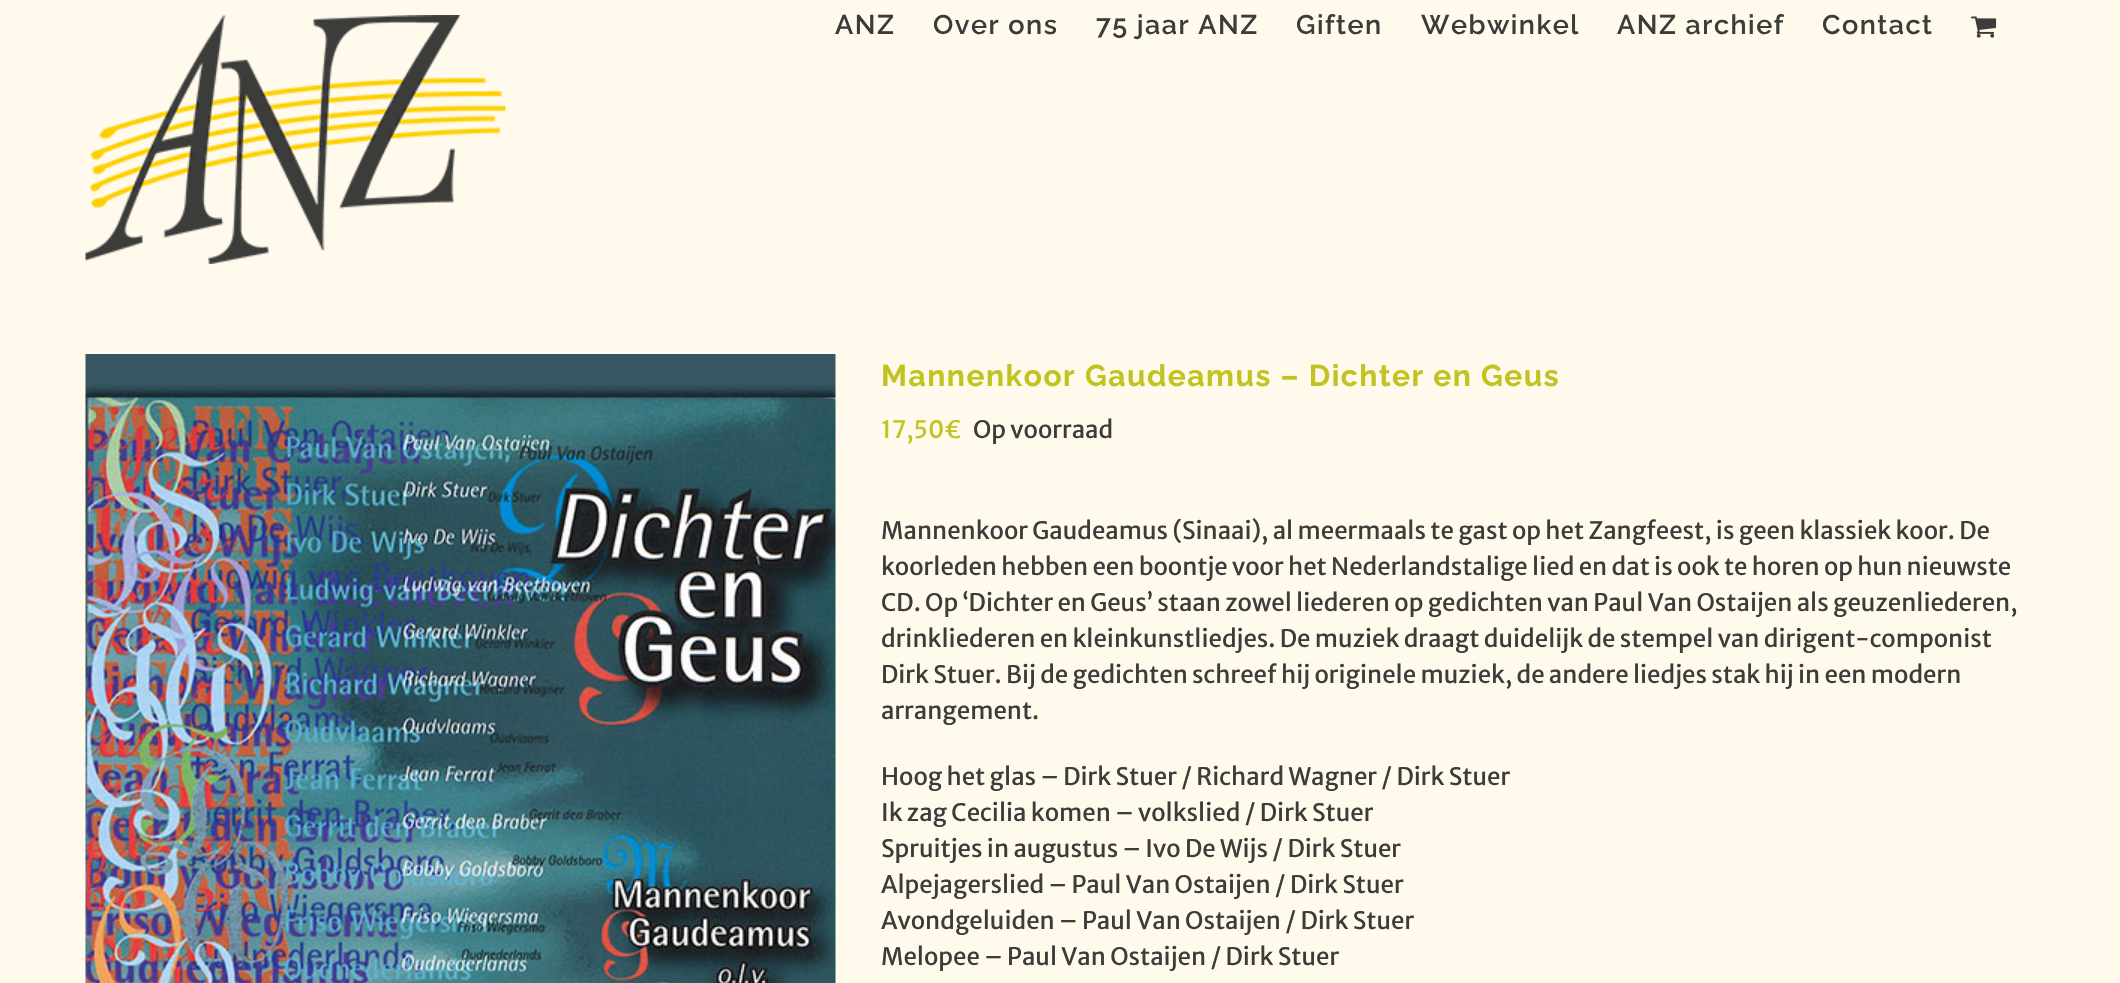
static SkFont makeFont(const char* family, int weight, float size, bool italic = false) {
  SkFontStyle style(weight, SkFontStyle::kNormal_Width,
    italic ? SkFontStyle::kItalic_Slant : SkFontStyle::kUpright_Slant);
  SkFont result(fontMgr->matchFamilyStyle(family, style), size);
  result.setSubpixel(true);
  return result;
}

static void text(SkCanvas* c, const char* s, float x, float y, const SkFont& font, SkColor color) {
  SkPaint ink(SkColor4f::FromColor(color));
  ink.setAntiAlias(true);
  c->drawString(s, x, y, font, ink);
}

static void spacedText(SkCanvas* c, const char* s, float x, float y, const SkFont& font, const SkPaint& ink, float letter, float word) {
  std::vector<SkGlyphID> glyphs(font.countText(s, strlen(s), SkTextEncoding::kUTF8));
  std::vector<float> xs(glyphs.size());
  font.textToGlyphs(s, strlen(s), SkTextEncoding::kUTF8, glyphs);
  font.getXPos(glyphs, xs, x);
  float extra = 0;
  for (size_t i = 0; i < glyphs.size(); i++) {
    xs[i] += extra;
    extra += letter + word * (glyphs[i] == font.unicharToGlyph(' '));
  }
  c->drawTextBlob(SkTextBlob::MakeFromPosHGlyphs(glyphs, xs, y, font), 0, 0, ink);
}

static void picture(SkCanvas* c, const char* path, float l, float t, float r, float b) {
  auto image = SkImages::DeferredFromEncodedData(SkData::MakeFromFileName(path));
  c->drawImageRect(image, SkRect::MakeLTRB(l, t, r, b), SkSamplingOptions());
}

void draw(SkCanvas* c) {
  SkPaint paint;
  paint.setAntiAlias(true);
  c->clear(0xfffffaec);
  picture(c, "img_01.png", 85, 15, 506, 264);
  SkFont face1 = makeFont("Raleway", 600, 27);
  paint.setColor(0xff3c3c3b);
  spacedText(c, "ANZ", 835, 34, face1, paint, 1.5f, 0);
  spacedText(c, "Over ons", 933, 34, face1, paint, 1.5f, 0);
  spacedText(c, "75 jaar ANZ", 1096, 34, face1, paint, 1.5f, 0);
  spacedText(c, "Giften", 1296, 34, face1, paint, 1.5f, 0);
  spacedText(c, "Webwinkel", 1421, 34, face1, paint, 1.5f, 0);
  spacedText(c, "ANZ archief", 1617, 34, face1, paint, 1.5f, 0);
  spacedText(c, "Contact", 1822, 34, face1, paint, 1.5f, 0);
  picture(c, "img_02.png", 1971, 16, 1997, 38);
  picture(c, "img_03.png", 85, 354, 836, 983);
  SkFont face2 = makeFont("Raleway", 700, 30);
  paint.setColor(0xffc2c320);
  spacedText(c, "Mannenkoor Gaudeamus – Dichter en Geus", 881, 386, face2, paint, 1.5f, 0);
  SkFont face3 = makeFont("Merriweather Sans", 400, 24);
  text(c, "17,50€", 881, 438, face3, 0xffc2c320);
  text(c, "Op voorraad", 973, 438, face3, 0xff3c3c3b);
  text(c, "Mannenkoor Gaudeamus (Sinaai), al meermaals te gast op het Zangfeest, is geen klassiek koor. De", 881, 539, face3, 0xff3c3c3b);
  text(c, "koorleden hebben een boontje voor het Nederlandstalige lied en dat is ook te horen op hun nieuwste", 881, 575, face3, 0xff3c3c3b);
  text(c, "CD. Op ‘Dichter en Geus’ staan zowel liederen op gedichten van Paul Van Ostaijen als geuzenliederen,", 881, 611, face3, 0xff3c3c3b);
  text(c, "drinkliederen en kleinkunstliedjes. De muziek draagt duidelijk de stempel van dirigent-componist", 881, 647, face3, 0xff3c3c3b);
  text(c, "Dirk Stuer. Bij de gedichten schreef hij originele muziek, de andere liedjes stak hij in een modern", 881, 683, face3, 0xff3c3c3b);
  text(c, "arrangement.", 881, 719, face3, 0xff3c3c3b);
  text(c, "Hoog het glas – Dirk Stuer / Richard Wagner / Dirk Stuer", 881, 785, face3, 0xff3c3c3b);
  text(c, "Ik zag Cecilia komen – volkslied / Dirk Stuer", 881, 821, face3, 0xff3c3c3b);
  text(c, "Spruitjes in augustus – Ivo De Wijs / Dirk Stuer", 881, 857, face3, 0xff3c3c3b);
  text(c, "Alpejagerslied – Paul Van Ostaijen / Dirk Stuer", 881, 893, face3, 0xff3c3c3b);
  text(c, "Avondgeluiden – Paul Van Ostaijen / Dirk Stuer", 881, 929, face3, 0xff3c3c3b);
  text(c, "Melopee – Paul Van Ostaijen / Dirk Stuer", 881, 965, face3, 0xff3c3c3b);
}
